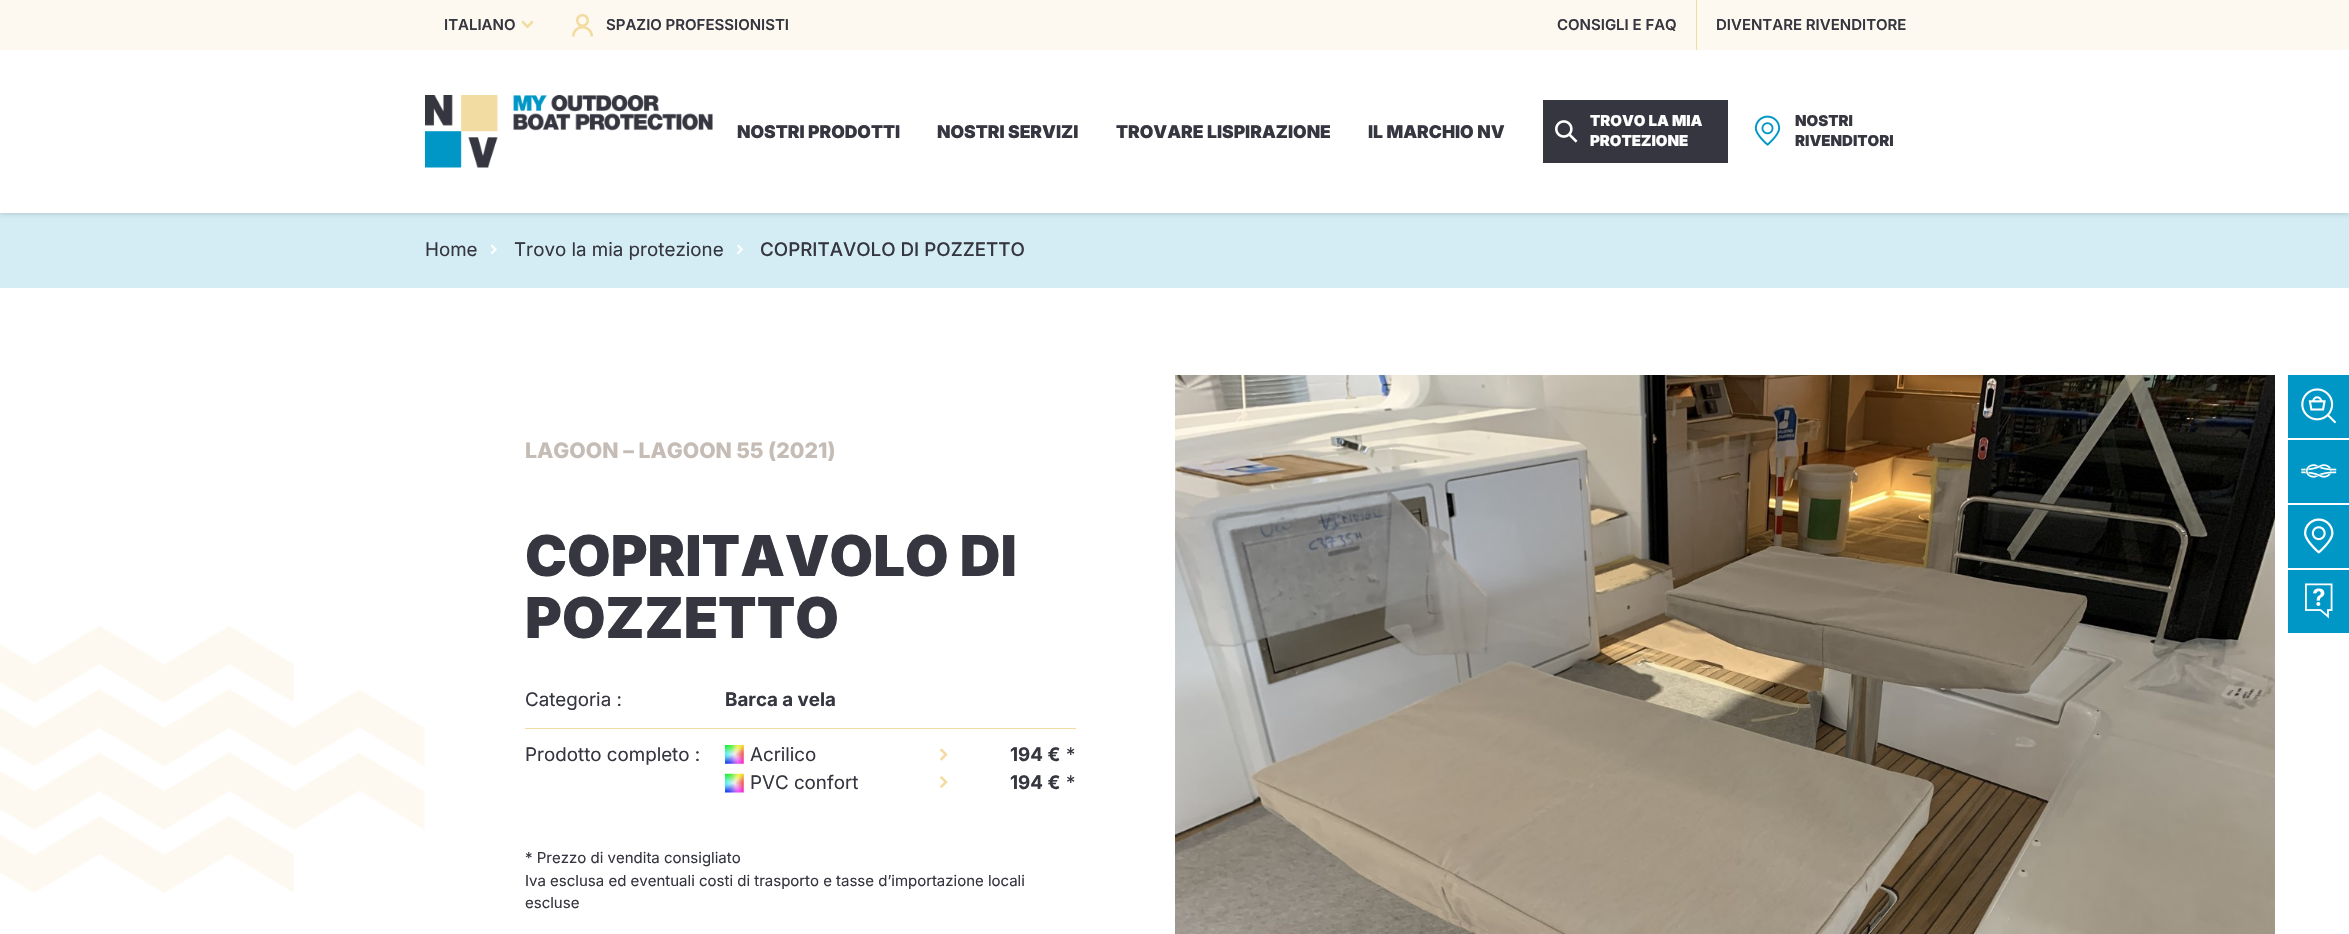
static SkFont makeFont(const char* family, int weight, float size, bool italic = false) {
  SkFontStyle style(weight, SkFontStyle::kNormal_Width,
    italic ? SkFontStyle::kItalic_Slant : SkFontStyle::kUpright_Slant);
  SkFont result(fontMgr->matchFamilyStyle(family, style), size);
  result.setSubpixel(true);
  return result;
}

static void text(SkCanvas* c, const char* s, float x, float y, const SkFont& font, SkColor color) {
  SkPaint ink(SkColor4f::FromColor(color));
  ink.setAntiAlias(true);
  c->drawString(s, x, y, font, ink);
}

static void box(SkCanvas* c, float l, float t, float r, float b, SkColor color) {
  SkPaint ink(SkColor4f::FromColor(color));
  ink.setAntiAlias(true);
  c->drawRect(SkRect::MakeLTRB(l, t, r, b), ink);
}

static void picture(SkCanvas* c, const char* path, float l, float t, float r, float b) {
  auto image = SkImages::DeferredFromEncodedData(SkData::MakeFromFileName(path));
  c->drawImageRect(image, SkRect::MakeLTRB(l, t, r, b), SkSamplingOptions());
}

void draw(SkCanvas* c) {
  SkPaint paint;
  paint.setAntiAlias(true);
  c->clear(0xffffffff);
  box(c, 0, 213, 2349, 288, 0xffd4ecf4);
  paint.setColor(0x33000000);
  paint.setMaskFilter(SkMaskFilter::MakeBlur(kNormal_SkBlurStyle, 3));
  c->drawRect(SkRect::MakeLTRB(0, 50, 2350, 213), paint);
  paint.setMaskFilter(nullptr);
  box(c, 0, 0, 2349, 50, 0xfffdf9f0);
  SkFont face1 = makeFont("Inter", 600, 15);
  text(c, "ITALIANO", 444, 30, face1, 0xff35363f);
  picture(c, "img_01.png", 521, 20, 534, 29);
  picture(c, "img_02.png", 572, 13, 593, 37);
  text(c, "SPAZIO PROFESSIONISTI", 606, 30, face1, 0xff35363f);
  box(c, 1696, 0, 1697, 50, 0xfff3dca1);
  text(c, "CONSIGLI E FAQ", 1557, 30, face1, 0xff35363f);
  text(c, "DIVENTARE RIVENDITORE", 1716, 30, face1, 0xff35363f);
  box(c, 0, 50, 2349, 213, 0xffffffff);
  picture(c, "img_03.png", 425, 95, 713, 168);
  SkFont face2 = makeFont("Inter", 900, 17.5f);
  text(c, "NOSTRI PRODOTTI", 737, 138, face2, 0xff35363f);
  text(c, "NOSTRI SERVIZI", 937, 138, face2, 0xff35363f);
  text(c, "TROVARE LISPIRAZIONE", 1116, 138, face2, 0xff35363f);
  text(c, "IL MARCHIO NV", 1368, 138, face2, 0xff35363f);
  box(c, 1543, 100, 1728, 163, 0xff35363f);
  picture(c, "img_04.png", 1555, 120, 1578, 143);
  SkFont face3 = makeFont("Inter", 900, 15);
  text(c, "TROVO LA MIA", 1590, 126, face3, 0xffffffff);
  text(c, "PROTEZIONE", 1590, 146, face3, 0xffffffff);
  picture(c, "img_05.png", 1754, 115, 1781, 146);
  text(c, "NOSTRI", 1795, 126, face3, 0xff35363f);
  text(c, "RIVENDITORI", 1795, 146, face3, 0xff35363f);
  SkFont face4 = makeFont("Inter", 400, 18.75f);
  text(c, "Home", 425, 256, face4, 0xff35363f);
  picture(c, "img_06.png", 490, 244, 497, 254);
  text(c, "Trovo la mia protezione", 514, 256, face4, 0xff35363f);
  picture(c, "img_07.png", 737, 244, 743, 255);
  SkFont face5 = makeFont("Inter", 500, 18.75f);
  text(c, "COPRITAVOLO DI POZZETTO", 760, 256, face5, 0xff35363f);
  picture(c, "img_08.png", 0, 626, 425, 893);
  SkFont face6 = makeFont("Inter", 800, 21.25f);
  text(c, "LAGOON – LAGOON 55 (2021)", 525, 458, face6, 0xffc5bdb5);
  SkFont face7 = makeFont("Inter", 900, 56.25f);
  text(c, "COPRITAVOLO DI", 525, 576, face7, 0xff35363f);
  text(c, "POZZETTO", 525, 638, face7, 0xff35363f);
  text(c, "Categoria :", 525, 706, face4, 0xff35363f);
  box(c, 525, 728, 1076, 729, 0xfff3dca1);
  SkFont face8 = makeFont("Inter", 700, 18.75f);
  text(c, "Barca a vela", 725, 706, face8, 0xff35363f);
  text(c, "Prodotto completo :", 525, 761, face4, 0xff35363f);
  picture(c, "img_09.png", 725, 745, 744, 764);
  text(c, "Acrilico", 750, 761, face4, 0xff35363f);
  picture(c, "img_10.png", 939, 748, 948, 761);
  text(c, "194 €", 1010, 761, face8, 0xff35363f);
  text(c, "*", 1066, 761, face4, 0xff35363f);
  picture(c, "img_11.png", 725, 773, 744, 793);
  text(c, "PVC confort", 750, 789, face4, 0xff35363f);
  picture(c, "img_12.png", 939, 775, 948, 789);
  text(c, "194 €", 1010, 789, face8, 0xff35363f);
  text(c, "*", 1066, 789, face4, 0xff35363f);
  SkFont face9 = makeFont("Inter", 400, 15);
  text(c, "* Prezzo di vendita consigliato", 525, 863, face9, 0xff35363f);
  text(c, "Iva esclusa ed eventuali costi di trasporto e tasse d’importazione locali", 525, 886, face9, 0xff35363f);
  text(c, "escluse", 525, 908, face9, 0xff35363f);
  picture(c, "img_13.png", 1175, 375, 2275, 934);
  box(c, 2288, 375, 2349, 438, 0xff0096c6);
  picture(c, "img_14.png", 2301, 388, 2337, 424);
  box(c, 2288, 440, 2349, 503, 0xff0096c6);
  picture(c, "img_15.png", 2301, 464, 2337, 478);
  box(c, 2288, 505, 2349, 568, 0xff0096c6);
  picture(c, "img_16.png", 2304, 518, 2334, 554);
  box(c, 2288, 570, 2349, 633, 0xff0096c6);
  picture(c, "img_17.png", 2305, 583, 2333, 619);
}
